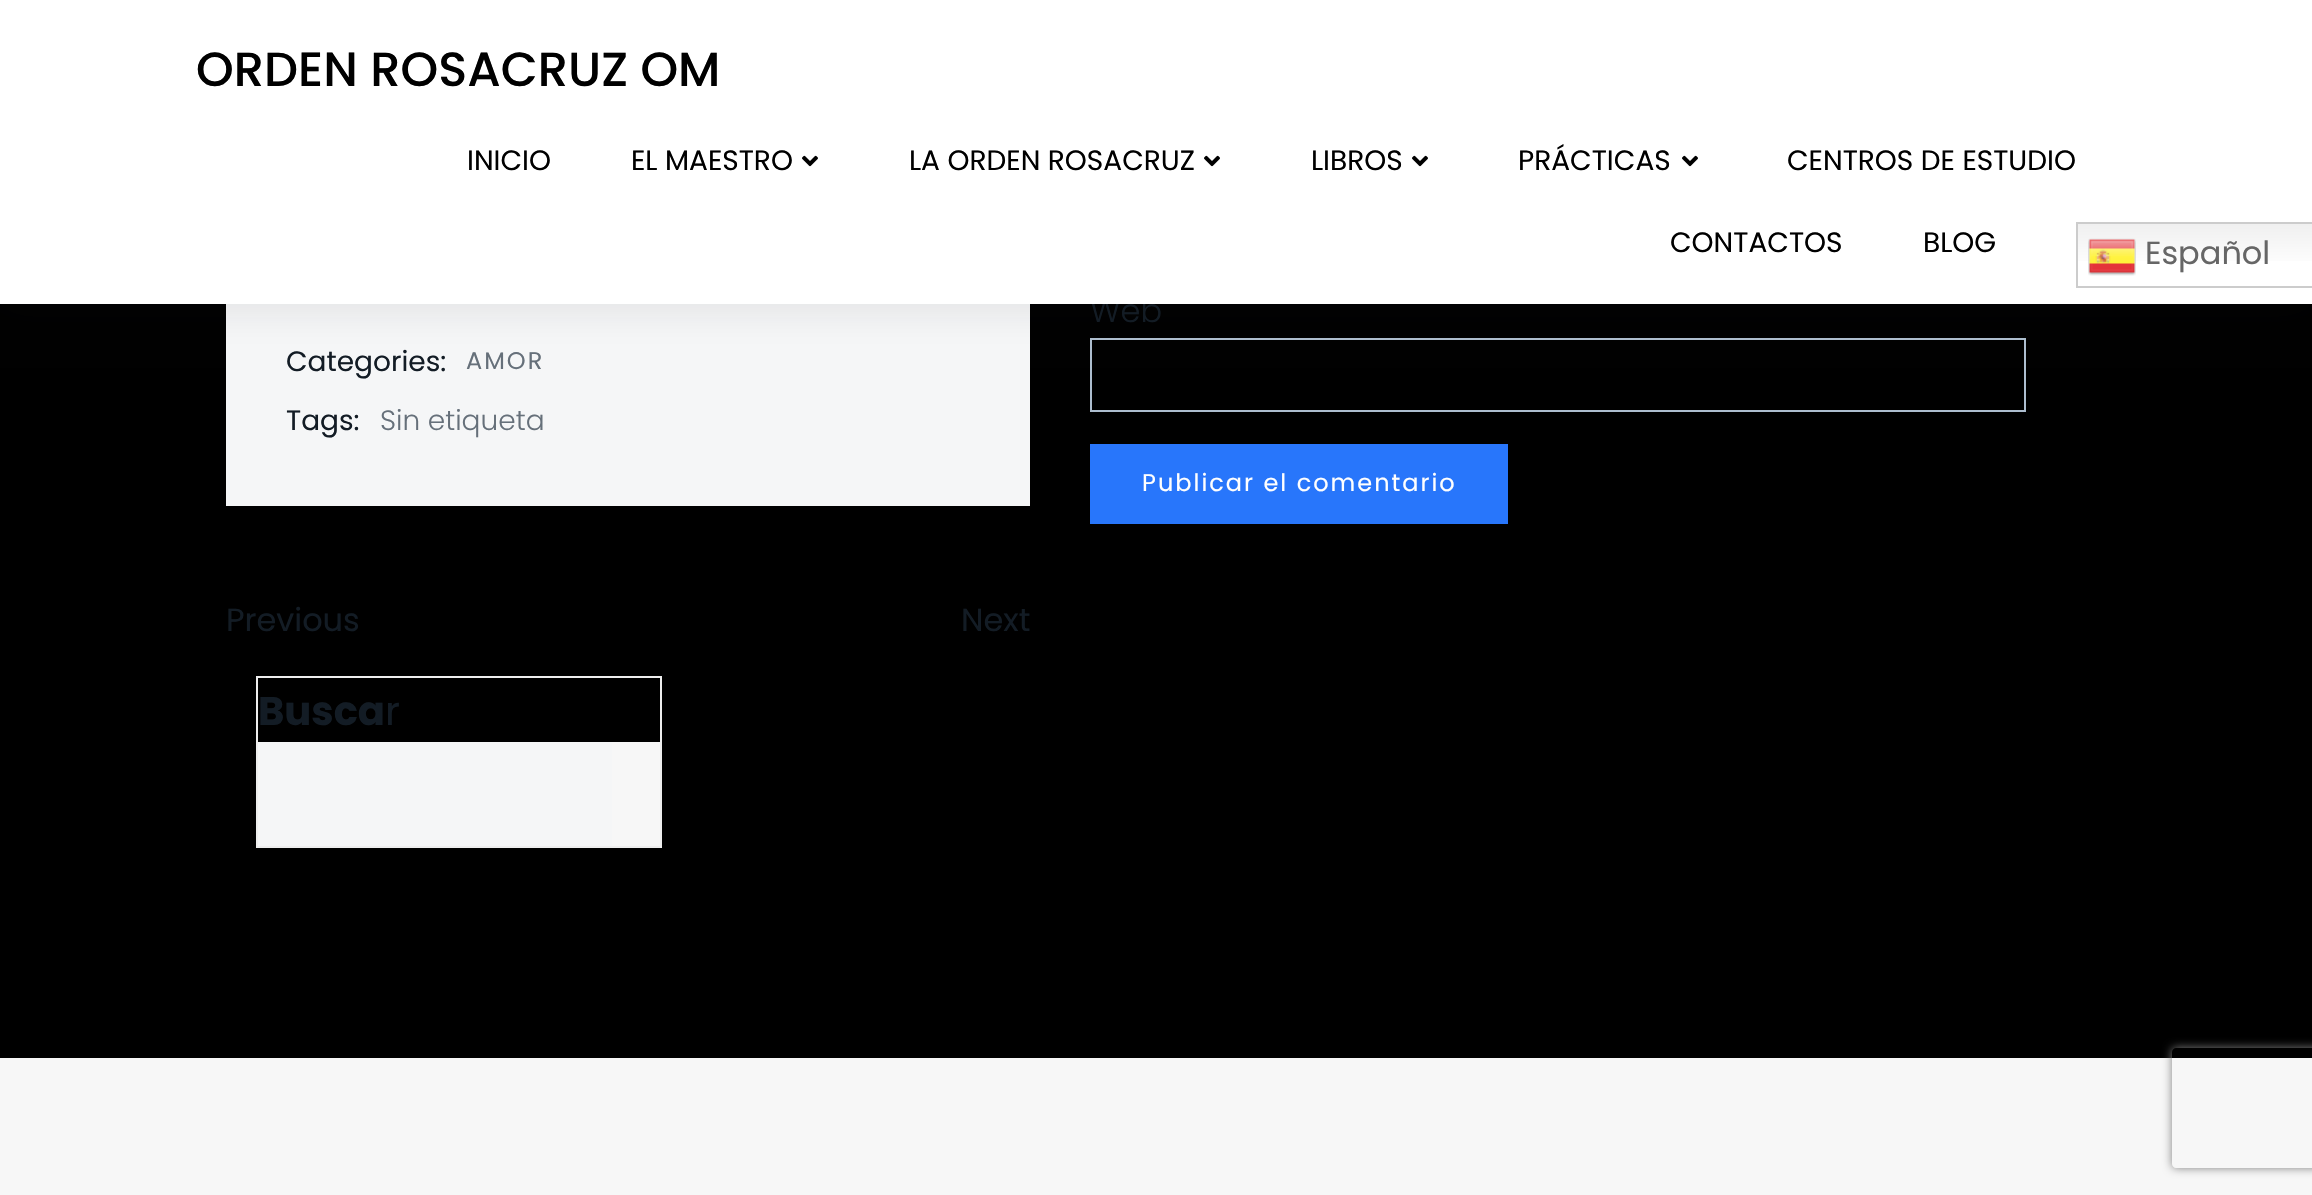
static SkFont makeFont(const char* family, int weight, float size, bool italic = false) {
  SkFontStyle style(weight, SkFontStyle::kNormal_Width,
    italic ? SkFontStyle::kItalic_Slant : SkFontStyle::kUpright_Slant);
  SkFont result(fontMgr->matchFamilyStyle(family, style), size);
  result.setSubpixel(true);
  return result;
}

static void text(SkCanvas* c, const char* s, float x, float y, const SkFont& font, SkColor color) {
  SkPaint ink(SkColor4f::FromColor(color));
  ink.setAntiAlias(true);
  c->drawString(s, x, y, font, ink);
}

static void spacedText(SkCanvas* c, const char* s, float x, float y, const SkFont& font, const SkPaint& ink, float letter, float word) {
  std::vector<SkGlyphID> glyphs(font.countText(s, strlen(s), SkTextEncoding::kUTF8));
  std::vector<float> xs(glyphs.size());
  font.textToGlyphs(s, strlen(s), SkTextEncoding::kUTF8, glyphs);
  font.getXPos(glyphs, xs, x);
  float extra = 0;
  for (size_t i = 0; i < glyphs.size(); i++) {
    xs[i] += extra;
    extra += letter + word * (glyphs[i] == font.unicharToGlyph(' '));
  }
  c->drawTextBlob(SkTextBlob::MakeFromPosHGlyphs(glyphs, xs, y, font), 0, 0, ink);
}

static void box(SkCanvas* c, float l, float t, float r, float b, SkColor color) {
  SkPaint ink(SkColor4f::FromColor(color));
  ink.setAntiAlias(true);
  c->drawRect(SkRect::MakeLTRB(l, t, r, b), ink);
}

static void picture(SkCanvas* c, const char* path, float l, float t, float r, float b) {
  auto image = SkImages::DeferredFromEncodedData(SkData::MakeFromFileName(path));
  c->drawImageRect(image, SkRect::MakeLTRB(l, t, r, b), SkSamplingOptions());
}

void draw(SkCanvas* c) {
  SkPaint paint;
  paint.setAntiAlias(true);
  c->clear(0xff000000);
  box(c, 226, 304, 1030, 506, 0xfff5f6f7);
  paint.setStyle(SkPaint::kStroke_Style);
  paint.setStrokeWidth(2);
  paint.setColor(0xffadbecf);
  c->drawRect(SkRect::MakeLTRB(1091, 339, 2025, 411), paint);
  paint.setStyle(SkPaint::kFill_Style);
  paint.setColor(0x1a1f2225);
  paint.setMaskFilter(SkMaskFilter::MakeBlur(kNormal_SkBlurStyle, 20));
  c->drawRect(SkRect::MakeLTRB(-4, -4, 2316, 308), paint);
  paint.setMaskFilter(nullptr);
  SkFont face1 = makeFont("Poppins", 300, 32);
  text(c, "Web", 1090, 322, face1, 0xff131c25);
  box(c, 0, 0, 2312, 304, 0xffffffff);
  SkFont face2 = makeFont("Poppins", 500, 48);
  text(c, "ORDEN ROSACRUZ OM", 196, 86, face2, 0xff000000);
  SkFont face3 = makeFont("Poppins", 400, 28);
  text(c, "INICIO", 467, 170, face3, 0xff000000);
  text(c, "EL MAESTRO", 631, 170, face3, 0xff000000);
  picture(c, "img_01.png", 802, 155, 818, 167);
  text(c, "LA ORDEN ROSACRUZ", 909, 170, face3, 0xff000000);
  picture(c, "img_01.png", 1204, 155, 1220, 167);
  text(c, "LIBROS", 1311, 170, face3, 0xff000000);
  picture(c, "img_01.png", 1412, 155, 1428, 167);
  text(c, "PRÁCTICAS", 1518, 170, face3, 0xff000000);
  picture(c, "img_01.png", 1682, 155, 1698, 167);
  text(c, "CENTROS DE ESTUDIO", 1787, 170, face3, 0xff000000);
  text(c, "CONTACTOS", 1670, 252, face3, 0xff000000);
  text(c, "BLOG", 1923, 252, face3, 0xff000000);
  {
    const SkColor colors[] = {0xffefefef, 0xffffffff};
    const float stops[] = {0, 0.7f};
    const SkPoint ends[] = {{2249, 222}, {2249, 288}};
    paint.setShader(SkGradientShader::MakeLinear(ends, colors, stops, 2, SkTileMode::kClamp));
    paint.setAlpha(255);
  }
  c->drawRect(SkRect::MakeLTRB(2078, 224, 2312, 261), paint);
  paint.setStyle(SkPaint::kStroke_Style);
  paint.setShader(nullptr);
  paint.setColor(0xffcccccc);
  c->drawRect(SkRect::MakeLTRB(2077, 223, 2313, 287), paint);
  picture(c, "img_02.png", 2088, 238, 2136, 276);
  SkFont face4 = makeFont("Poppins", 400, 32);
  text(c, "Español", 2145, 264, face4, 0xff666666);
  text(c, "Categories:", 286, 371, face3, 0xff131c25);
  SkFont face5 = makeFont("Poppins", 400, 24);
  paint.setStyle(SkPaint::kFill_Style);
  paint.setColor(0xff66707a);
  spacedText(c, "AMOR", 466, 369, face5, paint, 2, 0);
  text(c, "Tags:", 286, 430, face3, 0xff131c25);
  SkFont face6 = makeFont("Poppins", 300, 28);
  text(c, "Sin etiqueta", 380, 430, face6, 0xff66707a);
  text(c, "Previous", 226, 631, face4, 0xff131c25);
  text(c, "Next", 961, 631, face4, 0xff131c25);
  box(c, 1090, 444, 1508, 524, 0xff2876fb);
  paint.setColor(0xffffffff);
  spacedText(c, "Publicar el comentario", 1142, 491, face5, paint, 2, 0);
  paint.setStyle(SkPaint::kStroke_Style);
  paint.setColor(0xffeeeeee);
  c->drawRect(SkRect::MakeLTRB(257, 677, 661, 847), paint);
  SkFont face7 = makeFont("Poppins", 700, 40);
  text(c, "Busca", 258, 725, face7, 0xff131c25);
  SkFont face8 = makeFont("Poppins", 400, 40);
  text(c, "r", 385, 725, face8, 0xff131c25);
  box(c, 258, 742, 612, 846, 0xfff5f6f7);
  box(c, 612, 742, 660, 846, 0xfff7f7f7);
  box(c, 0, 1058, 2312, 1195, 0xfff7f7f7);
  c->save();
  c->clipPath(SkPathBuilder(SkPathFillType::kEvenOdd).moveTo(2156, 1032).lineTo(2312, 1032).lineTo(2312, 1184).lineTo(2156, 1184).close().moveTo(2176, 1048).lineTo(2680, 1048).cubicTo(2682, 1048, 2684, 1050, 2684, 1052).lineTo(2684, 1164).cubicTo(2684, 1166, 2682, 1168, 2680, 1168).lineTo(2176, 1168).cubicTo(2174, 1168, 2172, 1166, 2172, 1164).lineTo(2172, 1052).cubicTo(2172, 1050, 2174, 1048, 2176, 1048).close().detach(), true);
  paint.setStyle(SkPaint::kFill_Style);
  paint.setColor(0xff808080);
  paint.setMaskFilter(SkMaskFilter::MakeBlur(kNormal_SkBlurStyle, 5));
  c->drawRoundRect(SkRect::MakeLTRB(2172, 1048, 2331, 1168), 4, 4, paint);
  paint.setMaskFilter(nullptr);
  c->restore();
}
